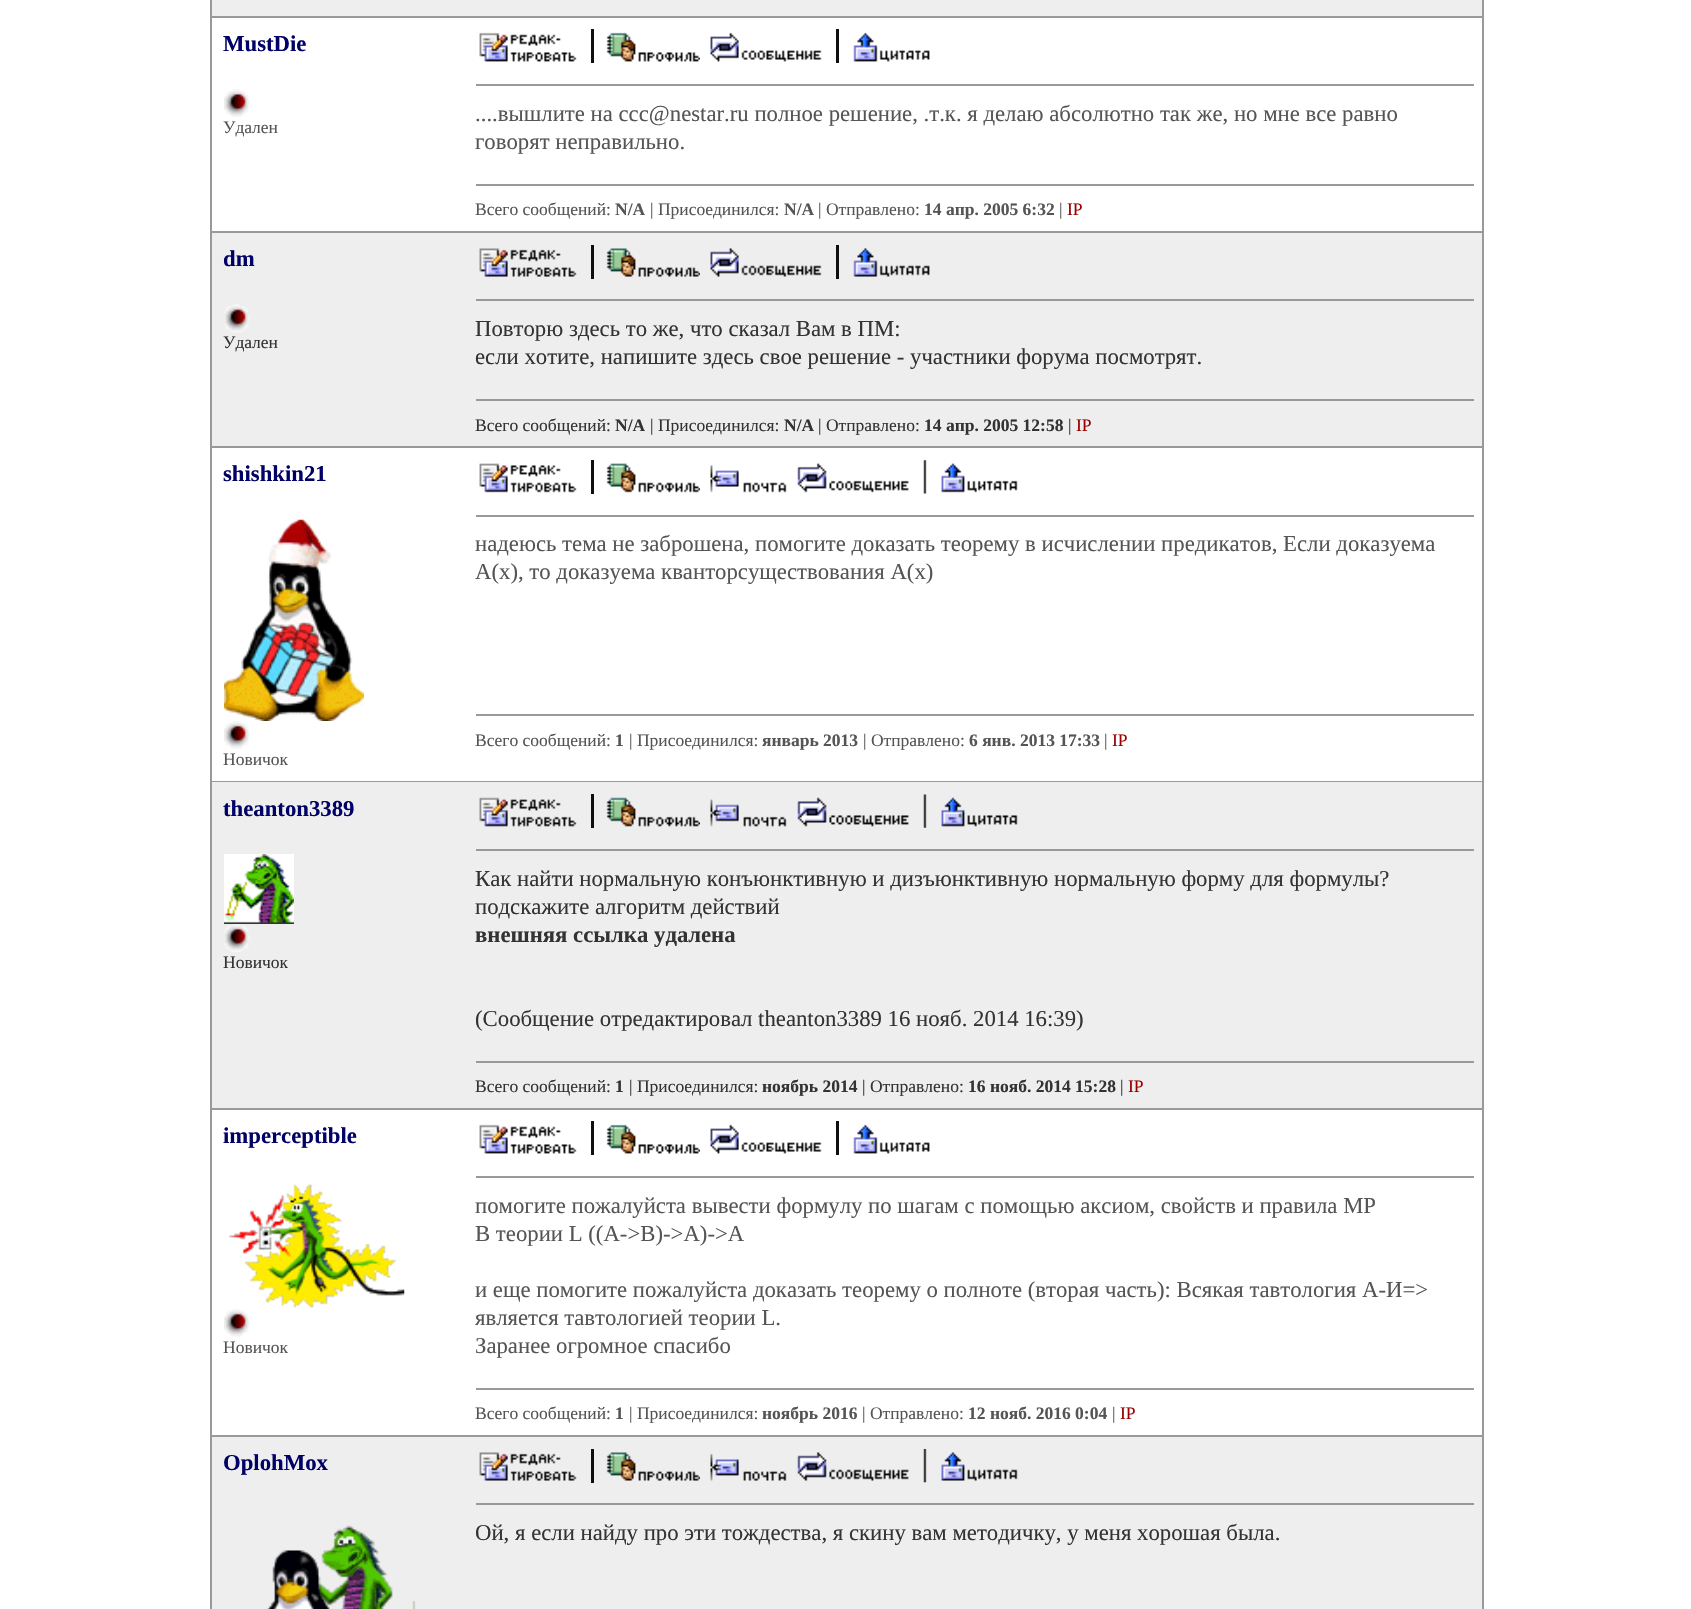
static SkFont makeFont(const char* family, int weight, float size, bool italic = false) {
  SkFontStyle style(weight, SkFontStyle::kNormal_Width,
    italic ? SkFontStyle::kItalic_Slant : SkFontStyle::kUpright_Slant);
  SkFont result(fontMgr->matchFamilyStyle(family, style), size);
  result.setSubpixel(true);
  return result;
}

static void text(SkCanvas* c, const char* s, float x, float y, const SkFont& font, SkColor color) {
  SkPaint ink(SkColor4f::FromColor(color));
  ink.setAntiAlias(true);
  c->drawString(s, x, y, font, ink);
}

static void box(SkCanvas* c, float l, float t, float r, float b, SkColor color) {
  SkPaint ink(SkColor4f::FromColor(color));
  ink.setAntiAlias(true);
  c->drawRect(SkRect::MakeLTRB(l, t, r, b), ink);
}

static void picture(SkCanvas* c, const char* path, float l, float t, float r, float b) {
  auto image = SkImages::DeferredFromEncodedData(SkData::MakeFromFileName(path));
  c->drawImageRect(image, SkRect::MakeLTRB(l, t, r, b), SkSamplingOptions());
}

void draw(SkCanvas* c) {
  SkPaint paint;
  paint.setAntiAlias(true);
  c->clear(0xffffffff);
  box(c, 210, 0, 1484, 1609, 0xff999999);
  box(c, 212, 0, 1482, 16, 0xffeeeeee);
  box(c, 212, 18, 1482, 231, 0xffffffff);
  SkFont face1 = makeFont("Liberation Serif", 700, 22.75f);
  text(c, "MustDie", 223, 51, face1, 0xff000066);
  picture(c, "img_01.png", 224, 89, 250, 117);
  SkFont face2 = makeFont("Liberation Serif", 400, 17.5f);
  text(c, "Удален", 223, 133, face2, 0xff555555);
  picture(c, "img_02.png", 479, 32, 577, 62);
  box(c, 591, 29, 594, 63, 0xff0f0f0f);
  picture(c, "img_03.png", 606, 32, 700, 62);
  picture(c, "img_04.png", 710, 32, 822, 62);
  box(c, 836, 29, 839, 63, 0xff0f0f0f);
  picture(c, "img_05.png", 853, 32, 930, 62);
  box(c, 476, 84, 1474, 86, 0xff999999);
  SkFont face3 = makeFont("Liberation Serif", 400, 22.75f);
  text(c, "....вышлите на ccc@nestar.ru полное решение, .т.к. я делаю абсолютно так же, но мне все равно", 475, 121, face3, 0xff555555);
  text(c, "говорят неправильно.", 475, 149, face3, 0xff555555);
  box(c, 476, 184, 1474, 186, 0xff999999);
  text(c, "Всего сообщений:", 475, 215, face2, 0xff555555);
  SkFont face4 = makeFont("Liberation Serif", 700, 17.5f);
  text(c, "N/A", 615, 215, face4, 0xff555555);
  text(c, "| Присоединился:", 650, 215, face2, 0xff555555);
  text(c, "N/A", 784, 215, face4, 0xff555555);
  text(c, "| Отправлено:", 818, 215, face2, 0xff555555);
  text(c, "14 апр. 2005 6:32", 924, 215, face4, 0xff555555);
  text(c, "|", 1059, 215, face2, 0xff555555);
  text(c, "IP", 1067, 215, face2, 0xff990000);
  box(c, 212, 233, 1482, 446, 0xffeeeeee);
  text(c, "dm", 223, 266, face1, 0xff000066);
  picture(c, "img_06.png", 224, 304, 250, 333);
  text(c, "Удален", 223, 348, face2, 0xff333333);
  picture(c, "img_07.png", 479, 248, 577, 277);
  box(c, 591, 245, 594, 279, 0xff0e0e0e);
  picture(c, "img_08.png", 606, 248, 700, 277);
  picture(c, "img_09.png", 710, 248, 822, 277);
  box(c, 836, 245, 839, 279, 0xff0e0e0e);
  picture(c, "img_10.png", 853, 248, 930, 277);
  box(c, 476, 299, 1474, 301, 0xff999999);
  text(c, "Повторю здесь то же, что сказал Вам в ПМ:", 475, 336, face3, 0xff333333);
  text(c, "если хотите, напишите здесь свое решение - участники форума посмотрят.", 475, 364, face3, 0xff333333);
  box(c, 476, 399, 1474, 401, 0xff999999);
  text(c, "Всего сообщений:", 475, 431, face2, 0xff333333);
  text(c, "N/A", 615, 431, face4, 0xff333333);
  text(c, "| Присоединился:", 650, 431, face2, 0xff333333);
  text(c, "N/A", 784, 431, face4, 0xff333333);
  text(c, "| Отправлено:", 818, 431, face2, 0xff333333);
  text(c, "14 апр. 2005 12:58", 924, 431, face4, 0xff333333);
  text(c, "|", 1068, 431, face2, 0xff333333);
  text(c, "IP", 1076, 431, face2, 0xff990000);
  box(c, 212, 448, 1482, 781, 0xffffffff);
  text(c, "shishkin21", 223, 481, face1, 0xff000066);
  picture(c, "img_11.png", 224, 519, 364, 721);
  picture(c, "img_12.png", 224, 721, 250, 749);
  text(c, "Новичок", 223, 765, face2, 0xff555555);
  picture(c, "img_13.png", 479, 463, 577, 493);
  box(c, 591, 460, 594, 494, 0xff0f0f0f);
  picture(c, "img_14.png", 606, 463, 700, 493);
  picture(c, "img_15.png", 710, 465, 787, 493);
  picture(c, "img_16.png", 797, 463, 909, 493);
  picture(c, "img_17.png", 923, 460, 927, 494);
  picture(c, "img_18.png", 941, 463, 1018, 493);
  box(c, 476, 515, 1474, 517, 0xff999999);
  text(c, "надеюсь тема не заброшена, помогите доказать теорему в исчислении предикатов, Если доказуема", 475, 551, face3, 0xff555555);
  text(c, "A(x), то доказуема кванторсуществования A(x)", 475, 579, face3, 0xff555555);
  box(c, 476, 714, 1474, 716, 0xff999999);
  text(c, "Всего сообщений:", 475, 746, face2, 0xff555555);
  text(c, "1", 615, 746, face4, 0xff555555);
  text(c, "| Присоединился:", 629, 746, face2, 0xff555555);
  text(c, "январь 2013", 762, 746, face4, 0xff555555);
  text(c, "| Отправлено:", 863, 746, face2, 0xff555555);
  text(c, "6 янв. 2013 17:33", 969, 746, face4, 0xff555555);
  text(c, "|", 1104, 746, face2, 0xff555555);
  text(c, "IP", 1112, 746, face2, 0xff990000);
  box(c, 212, 782, 1482, 1108, 0xffeeeeee);
  text(c, "theanton3389", 223, 816, face1, 0xff000066);
  picture(c, "img_19.png", 224, 854, 294, 924);
  picture(c, "img_20.png", 224, 924, 250, 952);
  text(c, "Новичок", 223, 968, face2, 0xff333333);
  picture(c, "img_21.png", 479, 797, 577, 827);
  box(c, 591, 794, 594, 828, 0xff0e0e0e);
  picture(c, "img_22.png", 606, 797, 700, 827);
  picture(c, "img_23.png", 710, 799, 787, 827);
  picture(c, "img_24.png", 797, 797, 909, 827);
  picture(c, "img_25.png", 923, 794, 927, 828);
  picture(c, "img_26.png", 941, 797, 1018, 827);
  box(c, 476, 849, 1474, 851, 0xff999999);
  text(c, "Как найти нормальную конъюнктивную и дизъюнктивную нормальную форму для формулы?", 475, 886, face3, 0xff333333);
  text(c, "подскажите алгоритм действий", 475, 914, face3, 0xff333333);
  text(c, "внешняя ссылка удалена", 475, 942, face1, 0xff333333);
  text(c, "(Сообщение отредактировал theanton3389 16 нояб. 2014 16:39)", 475, 1026, face3, 0xff333333);
  box(c, 476, 1061, 1474, 1063, 0xff999999);
  text(c, "Всего сообщений:", 475, 1092, face2, 0xff333333);
  text(c, "1", 615, 1092, face4, 0xff333333);
  text(c, "| Присоединился:", 629, 1092, face2, 0xff333333);
  text(c, "ноябрь 2014", 762, 1092, face4, 0xff333333);
  text(c, "| Отправлено:", 862, 1092, face2, 0xff333333);
  text(c, "16 нояб. 2014 15:28", 968, 1092, face4, 0xff333333);
  text(c, "|", 1120, 1092, face2, 0xff333333);
  text(c, "IP", 1128, 1092, face2, 0xff990000);
  box(c, 212, 1110, 1482, 1435, 0xffffffff);
  text(c, "imperceptible", 223, 1143, face1, 0xff000066);
  picture(c, "img_27.png", 229, 1184, 405, 1308);
  picture(c, "img_12.png", 224, 1309, 250, 1337);
  text(c, "Новичок", 223, 1353, face2, 0xff555555);
  picture(c, "img_02.png", 479, 1124, 577, 1154);
  box(c, 591, 1121, 594, 1155, 0xff0f0f0f);
  picture(c, "img_03.png", 606, 1124, 700, 1154);
  picture(c, "img_04.png", 710, 1124, 822, 1154);
  box(c, 836, 1121, 839, 1155, 0xff0f0f0f);
  picture(c, "img_05.png", 853, 1124, 930, 1154);
  box(c, 476, 1176, 1474, 1178, 0xff999999);
  text(c, "помогите пожалуйста вывести формулу по шагам с помощью аксиом, свойств и правила MP", 475, 1213, face3, 0xff555555);
  text(c, "В теории L ((A->B)->A)->A", 475, 1241, face3, 0xff555555);
  text(c, "и еще помогите пожалуйста доказать теорему о полноте (вторая часть): Всякая тавтология A-И=>", 475, 1297, face3, 0xff555555);
  text(c, "является тавтологией теории L.", 475, 1325, face3, 0xff555555);
  text(c, "Заранее огромное спасибо", 475, 1353, face3, 0xff555555);
  box(c, 476, 1388, 1474, 1390, 0xff999999);
  text(c, "Всего сообщений:", 475, 1419, face2, 0xff555555);
  text(c, "1", 615, 1419, face4, 0xff555555);
  text(c, "| Присоединился:", 629, 1419, face2, 0xff555555);
  text(c, "ноябрь 2016", 762, 1419, face4, 0xff555555);
  text(c, "| Отправлено:", 862, 1419, face2, 0xff555555);
  text(c, "12 нояб. 2016 0:04", 968, 1419, face4, 0xff555555);
  text(c, "|", 1112, 1419, face2, 0xff555555);
  text(c, "IP", 1120, 1419, face2, 0xff990000);
  box(c, 212, 1437, 1482, 1609, 0xffeeeeee);
  text(c, "OplohMox", 223, 1470, face1, 0xff000066);
  picture(c, "img_28.png", 267, 1525, 416, 1609);
  picture(c, "img_07.png", 479, 1452, 577, 1481);
  box(c, 591, 1449, 594, 1483, 0xff0e0e0e);
  picture(c, "img_08.png", 606, 1452, 700, 1481);
  picture(c, "img_29.png", 710, 1453, 787, 1481);
  picture(c, "img_30.png", 797, 1452, 909, 1481);
  picture(c, "img_31.png", 923, 1449, 927, 1483);
  picture(c, "img_32.png", 941, 1452, 1018, 1481);
  box(c, 476, 1503, 1474, 1505, 0xff999999);
  text(c, "Ой, я если найду про эти тождества, я скину вам методичку, у меня хорошая была.", 475, 1540, face3, 0xff333333);
}
